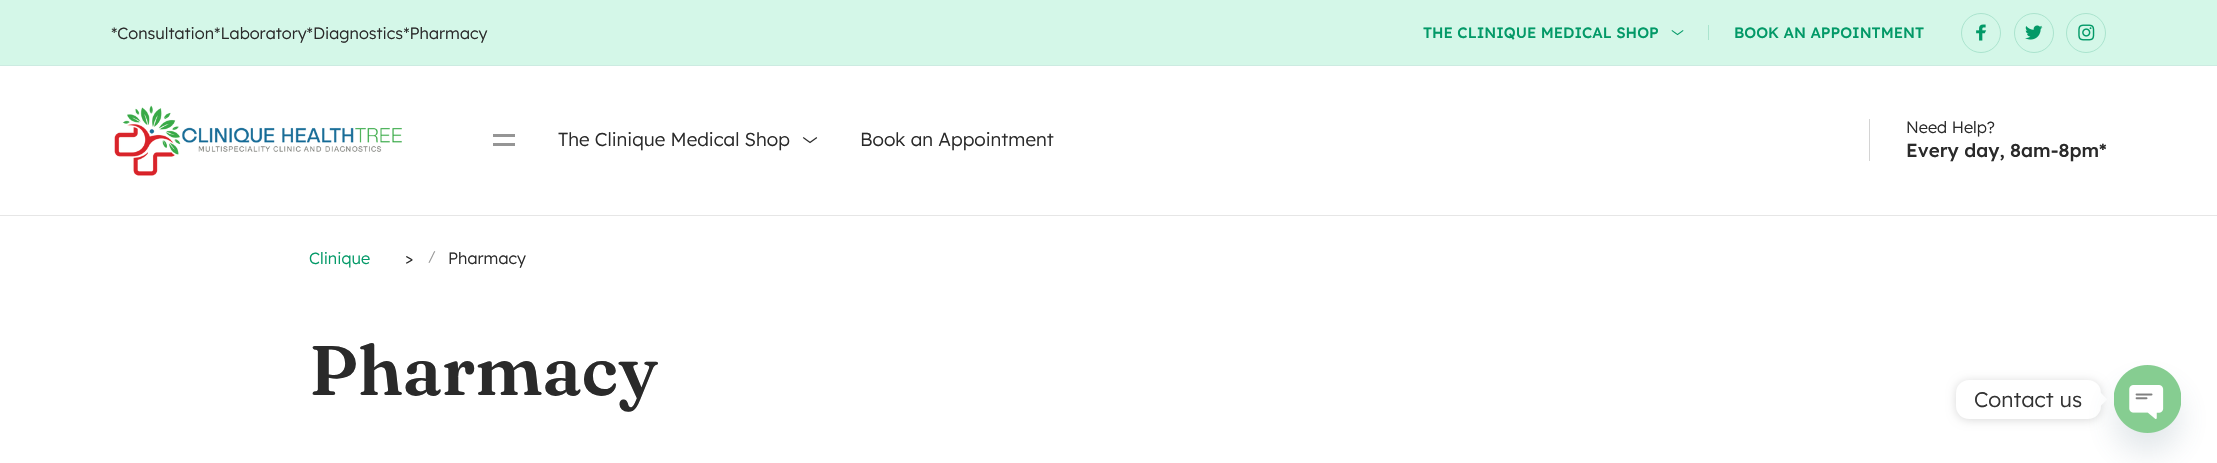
static SkFont makeFont(const char* family, int weight, float size, bool italic = false) {
  SkFontStyle style(weight, SkFontStyle::kNormal_Width,
    italic ? SkFontStyle::kItalic_Slant : SkFontStyle::kUpright_Slant);
  SkFont result(fontMgr->matchFamilyStyle(family, style), size);
  result.setSubpixel(true);
  return result;
}

static void text(SkCanvas* c, const char* s, float x, float y, const SkFont& font, SkColor color) {
  SkPaint ink(SkColor4f::FromColor(color));
  ink.setAntiAlias(true);
  c->drawString(s, x, y, font, ink);
}

static void box(SkCanvas* c, float l, float t, float r, float b, SkColor color) {
  SkPaint ink(SkColor4f::FromColor(color));
  ink.setAntiAlias(true);
  c->drawRect(SkRect::MakeLTRB(l, t, r, b), ink);
}

static void roundBox(SkCanvas* c, float l, float t, float r, float b, float radius, SkColor color) {
  SkPaint ink(SkColor4f::FromColor(color));
  ink.setAntiAlias(true);
  c->drawRoundRect(SkRect::MakeLTRB(l, t, r, b), radius, radius, ink);
}

static void picture(SkCanvas* c, const char* path, float l, float t, float r, float b) {
  auto image = SkImages::DeferredFromEncodedData(SkData::MakeFromFileName(path));
  c->drawImageRect(image, SkRect::MakeLTRB(l, t, r, b), SkSamplingOptions());
}

void draw(SkCanvas* c) {
  SkPaint paint;
  paint.setAntiAlias(true);
  c->clear(0xffffffff);
  box(c, 0, 0, 2217, 65, 0xffd4f7e8);
  SkFont face1 = makeFont("Lexend", 300, 16.25f);
  text(c, "*Consultation*Laboratory*Diagnostics*Pharmacy", 111, 39, face1, 0xff2a2a2a);
  SkFont face2 = makeFont("Lexend", 500, 15);
  text(c, "THE CLINIQUE MEDICAL SHOP", 1423, 38, face2, 0xff029967);
  picture(c, "img_01.png", 1671, 30, 1684, 36);
  box(c, 1708, 25, 1709, 40, 0xffaae4ce);
  text(c, "BOOK AN APPOINTMENT", 1734, 38, face2, 0xff029967);
  paint.setStyle(SkPaint::kStroke_Style);
  paint.setStrokeWidth(1);
  paint.setColor(0xffaae4ce);
  c->drawCircle(1981, 33, 19.5f, paint);
  picture(c, "img_02.png", 1976, 24, 1987, 41);
  c->drawCircle(2034, 33, 19.5f, paint);
  picture(c, "img_03.png", 2025, 25, 2043, 40);
  c->drawCircle(2086, 33, 19.5f, paint);
  picture(c, "img_04.png", 2078, 24, 2095, 41);
  picture(c, "img_05.png", 114, 105, 402, 176);
  box(c, 493, 134, 515, 137, 0xff959595);
  box(c, 493, 143, 515, 146, 0xff959595);
  SkFont face3 = makeFont("Lexend", 300, 18.75f);
  text(c, "The Clinique Medical Shop", 558, 146, face3, 0xff2a2a2a);
  picture(c, "img_06.png", 802, 137, 818, 144);
  text(c, "Book an Appointment", 860, 146, face3, 0xff2a2a2a);
  box(c, 1869, 119, 1870, 161, 0xffd4d4d4);
  text(c, "Need Help?", 1906, 133, face1, 0xff2a2a2a);
  SkFont face4 = makeFont("Lexend", 500, 18.75f);
  text(c, "Every day, 8am-8pm*", 1906, 157, face4, 0xff2a2a2a);
  box(c, 0, 65, 2217, 66, 0xffccebe1);
  box(c, 0, 215, 2217, 216, 0xffe6e6e6);
  text(c, "Clinique", 309, 264, face1, 0xff029967);
  text(c, ">", 405, 264, face1, 0xff2a2a2a);
  SkFont face5 = makeFont("Lexend", 300, 14);
  text(c, "/", 428, 261, face5, 0xff959595);
  text(c, "Pharmacy", 448, 264, face1, 0xff2a2a2a);
  SkFont face6 = makeFont("Fraunces", 600, 70);
  text(c, "Pharmacy", 309, 395, face6, 0xff2a2a2a);
  paint.setStyle(SkPaint::kFill_Style);
  paint.setColor(0x26000000);
  paint.setMaskFilter(SkMaskFilter::MakeBlur(kNormal_SkBlurStyle, 5));
  c->drawRoundRect(SkRect::MakeLTRB(1956, 381, 2101, 420), 13, 13, paint);
  paint.setMaskFilter(nullptr);
  roundBox(c, 1956, 380, 2101, 419, 13, 0xffffffff);
  SkFont face7 = makeFont("Lexend", 300, 21.25f);
  text(c, "Contact us", 1974, 407, face7, 0xff333333);
  paint.setColor(0xffffffff);
  c->drawPath(SkPathBuilder().moveTo(2101, 405.5f).lineTo(2101, 393).lineTo(2107.5f, 399.5f).close().detach(), paint);
  paint.setColor(0x2949687e);
  paint.setMaskFilter(SkMaskFilter::MakeBlur(kNormal_SkBlurStyle, 15));
  c->drawRoundRect(SkRect::MakeLTRB(2114, 385, 2181, 453), 33.5f, 33.5f, paint);
  paint.setMaskFilter(nullptr);
  picture(c, "img_07.png", 2114, 365, 2181, 433);
}
